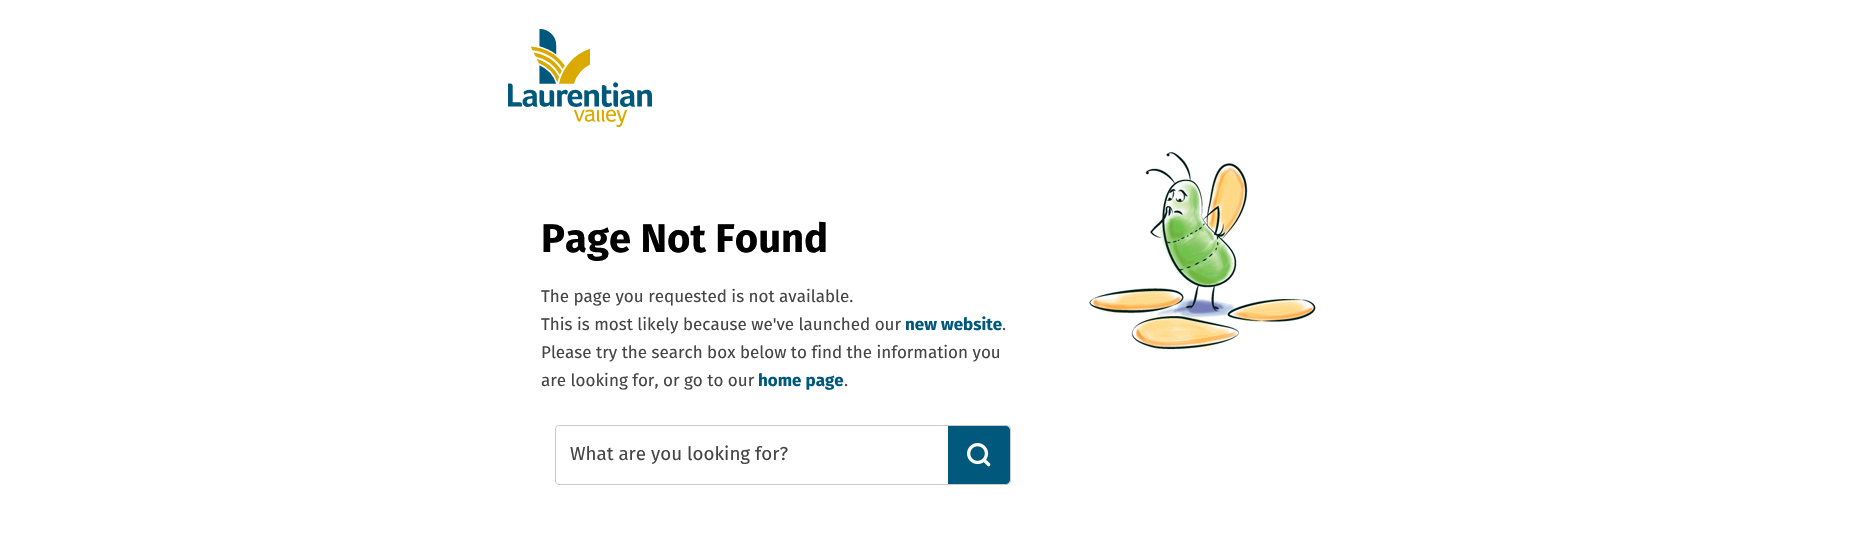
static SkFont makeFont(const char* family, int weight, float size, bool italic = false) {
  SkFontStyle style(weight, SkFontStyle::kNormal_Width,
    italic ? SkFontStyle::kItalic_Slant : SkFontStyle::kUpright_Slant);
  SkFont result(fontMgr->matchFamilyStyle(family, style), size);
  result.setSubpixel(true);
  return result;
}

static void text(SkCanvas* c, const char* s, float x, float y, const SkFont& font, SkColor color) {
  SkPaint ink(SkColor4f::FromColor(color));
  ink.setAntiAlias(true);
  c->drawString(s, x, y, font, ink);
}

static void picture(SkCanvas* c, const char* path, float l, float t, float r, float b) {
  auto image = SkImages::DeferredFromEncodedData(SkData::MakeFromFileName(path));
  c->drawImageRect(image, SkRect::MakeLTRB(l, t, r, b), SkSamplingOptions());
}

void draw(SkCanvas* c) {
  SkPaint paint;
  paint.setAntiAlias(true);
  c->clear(0xffffffff);
  picture(c, "img_01.png", 1089, 151, 1318, 351);
  picture(c, "img_02.png", 508, 29, 652, 127);
  SkFont face1 = makeFont("Fira Sans", 700, 40);
  text(c, "Page Not Found", 541, 252, face1, 0xff000000);
  SkFont face2 = makeFont("Fira Sans", 400, 17);
  text(c, "The page you requested is not available.", 541, 302, face2, 0xff454545);
  text(c, "This is most likely because we've launched our", 541, 330, face2, 0xff454545);
  SkFont face3 = makeFont("Fira Sans", 700, 17);
  text(c, "new website", 905, 330, face3, 0xff00587c);
  text(c, ".", 1002, 330, face2, 0xff454545);
  text(c, "Please try the search box below to find the information you", 541, 358, face2, 0xff454545);
  text(c, "are looking for, or go to our", 541, 386, face2, 0xff454545);
  text(c, "home page", 758, 386, face3, 0xff00587c);
  text(c, ".", 844, 386, face2, 0xff454545);
  paint.setStyle(SkPaint::kStroke_Style);
  paint.setStrokeWidth(1);
  paint.setColor(0xffcccccc);
  c->drawRoundRect(SkRect::MakeLTRB(555.5f, 425.5f, 1010.5f, 484.5f), 3.5f, 3.5f, paint);
  paint.setStyle(SkPaint::kFill_Style);
  paint.setColor(0xffffffff);
  c->drawPath(SkPathBuilder().moveTo(560, 426).lineTo(948, 426).lineTo(948, 484).lineTo(560, 484).cubicTo(558, 484, 556, 482, 556, 480).lineTo(556, 430).cubicTo(556, 428, 558, 426, 560, 426).close().detach(), paint);
  SkFont face4 = makeFont("Fira Sans", 400, 18.75f);
  text(c, "What are you looking for?", 570, 460, face4, 0xff454545);
  paint.setColor(0xff00587c);
  c->drawPath(SkPathBuilder().moveTo(948, 426).lineTo(1006, 426).cubicTo(1008, 426, 1010, 428, 1010, 430).lineTo(1010, 480).cubicTo(1010, 482, 1008, 484, 1006, 484).lineTo(948, 484).close().detach(), paint);
  picture(c, "img_03.png", 967, 443, 991, 467);
}
